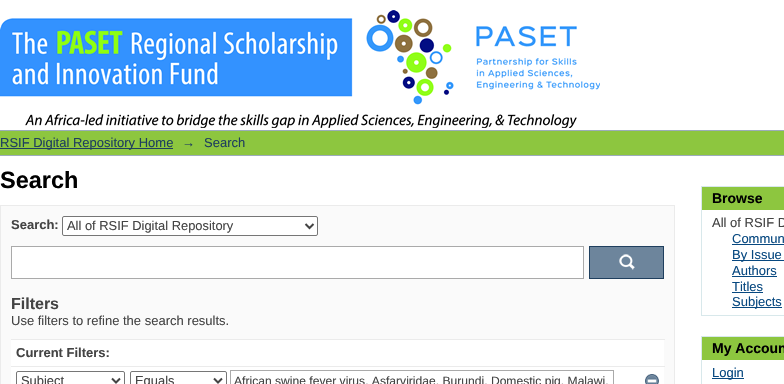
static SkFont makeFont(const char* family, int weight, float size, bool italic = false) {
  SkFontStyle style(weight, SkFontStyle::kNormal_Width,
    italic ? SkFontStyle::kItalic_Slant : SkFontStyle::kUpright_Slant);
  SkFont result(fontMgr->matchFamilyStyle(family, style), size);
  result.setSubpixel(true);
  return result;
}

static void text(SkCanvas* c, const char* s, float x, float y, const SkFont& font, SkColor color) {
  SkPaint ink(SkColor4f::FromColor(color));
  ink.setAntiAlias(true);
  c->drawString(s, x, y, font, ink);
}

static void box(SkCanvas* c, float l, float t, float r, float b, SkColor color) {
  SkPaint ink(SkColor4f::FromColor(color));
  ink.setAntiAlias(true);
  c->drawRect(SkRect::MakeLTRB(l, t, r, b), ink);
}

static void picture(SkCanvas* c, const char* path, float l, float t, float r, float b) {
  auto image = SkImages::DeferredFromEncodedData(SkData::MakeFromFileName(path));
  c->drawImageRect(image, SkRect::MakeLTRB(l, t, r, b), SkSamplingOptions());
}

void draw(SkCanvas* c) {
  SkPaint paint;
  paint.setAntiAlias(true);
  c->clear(0xffffffff);
  picture(c, "img_01.png", 0, 10, 600, 128);
  box(c, 0, 131, 784, 155, 0xff8dc63f);
  box(c, 0, 130, 784, 131, 0xff9cacba);
  box(c, 0, 155, 784, 156, 0xff9cacba);
  box(c, 0, 148, 173, 149, 0xff1f3f5e);
  SkFont face1 = makeFont("Liberation Sans", 400, 13);
  text(c, "RSIF Digital Repository Home", 0, 147, face1, 0xff1f3f5e);
  text(c, "→", 182, 147, face1, 0xff1f3f5e);
  text(c, "Search", 204, 147, face1, 0xff1f3f5e);
  SkFont face2 = makeFont("Liberation Sans", 700, 23.5f);
  text(c, "Search", 0, 188, face2, 0xff000000);
  paint.setColor(0xfffafafa);
  c->drawRect(SkRect::MakeLTRB(0.5f, 205.5f, 674.5f, 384.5f), paint);
  paint.setStyle(SkPaint::kStroke_Style);
  paint.setStrokeWidth(1);
  paint.setColor(0xffebebeb);
  c->drawRect(SkRect::MakeLTRB(0.5f, 205.5f, 674.5f, 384.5f), paint);
  SkFont face3 = makeFont("Liberation Sans", 700, 13);
  text(c, "Search:", 11, 229, face3, 0xff444444);
  paint.setStyle(SkPaint::kFill_Style);
  paint.setColor(0xffffffff);
  c->drawRoundRect(SkRect::MakeLTRB(62.5f, 216.5f, 317.5f, 235.5f), 1.5f, 1.5f, paint);
  paint.setStyle(SkPaint::kStroke_Style);
  paint.setColor(0xff767676);
  c->drawRoundRect(SkRect::MakeLTRB(62.5f, 216.5f, 317.5f, 235.5f), 1.5f, 1.5f, paint);
  paint.setStrokeWidth(2);
  paint.setColor(0xff444444);
  c->drawPath(SkPathBuilder().moveTo(305.5f, 224).lineTo(309.5f, 228).lineTo(313.5f, 224).detach(), paint);
  SkFont face4 = makeFont("Liberation Sans", 400, 12.9f);
  text(c, "All of RSIF Digital Repository", 67, 230, face4, 0xff444444);
  paint.setStyle(SkPaint::kFill_Style);
  paint.setColor(0xffffffff);
  c->drawRect(SkRect::MakeLTRB(11.5f, 246.5f, 583.5f, 278.5f), paint);
  paint.setStyle(SkPaint::kStroke_Style);
  paint.setStrokeWidth(1);
  paint.setColor(0xffaaaaaa);
  c->drawRect(SkRect::MakeLTRB(11.5f, 246.5f, 583.5f, 278.5f), paint);
  box(c, 590, 247, 663, 278, 0xff6d859c);
  picture(c, "img_02.png", 619, 254, 635, 270);
  paint.setColor(0xff1f3f5e);
  c->drawRect(SkRect::MakeLTRB(589.5f, 246.5f, 663.5f, 278.5f), paint);
  SkFont face5 = makeFont("Liberation Sans", 700, 16);
  text(c, "Filters", 11, 309, face5, 0xff444444);
  text(c, "Use filters to refine the search results.", 11, 325, face1, 0xff444444);
  box(c, 11, 340, 664, 384, 0xffffffff);
  box(c, 11, 339, 665, 340, 0xffebebeb);
  text(c, "Current Filters:", 16, 357, face3, 0xff444444);
  box(c, 11, 366, 665, 367, 0xffebebeb);
  paint.setColor(0xff767676);
  c->drawRoundRect(SkRect::MakeLTRB(16.5f, 371.5f, 124.5f, 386.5f), 1.5f, 1.5f, paint);
  paint.setStrokeWidth(2);
  paint.setColor(0xff444444);
  c->drawPath(SkPathBuilder().moveTo(112, 378.5f).lineTo(116, 382.5f).lineTo(120, 378.5f).detach(), paint);
  text(c, "Subject", 21, 385, face4, 0xff444444);
  paint.setStrokeWidth(1);
  paint.setColor(0xff767676);
  c->drawRoundRect(SkRect::MakeLTRB(130.5f, 371.5f, 226.5f, 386.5f), 1.5f, 1.5f, paint);
  paint.setStrokeWidth(2);
  paint.setColor(0xff444444);
  c->drawPath(SkPathBuilder().moveTo(214, 378.5f).lineTo(218, 382.5f).lineTo(222, 378.5f).detach(), paint);
  text(c, "Equals", 135, 385, face4, 0xff444444);
  paint.setStrokeWidth(1);
  paint.setColor(0xffaaaaaa);
  c->drawRect(SkRect::MakeLTRB(230.5f, 370.5f, 613.5f, 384.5f), paint);
  SkFont face6 = makeFont("Liberation Sans", 400, 12.1f);
  text(c, "African swine fever virus, Asfarviridae, Burundi, Domestic pig, Malawi,", 234, 385, face6, 0xff444444);
  picture(c, "img_03.png", 645, 374, 659, 384);
  box(c, 702, 187, 784, 210, 0xff8dc63f);
  box(c, 701, 186, 784, 187, 0xffd8e8eb);
  box(c, 701, 186, 702, 210, 0xffd8e8eb);
  SkFont face7 = makeFont("Liberation Sans", 700, 14);
  text(c, "Browse", 712, 203, face7, 0xff000000);
  box(c, 701, 315, 784, 316, 0xffd8e8eb);
  box(c, 701, 210, 702, 316, 0xffd8e8eb);
  text(c, "All of RSIF D", 712, 227, face1, 0xff444444);
  text(c, "Commun", 732, 243, face1, 0xff074880);
  box(c, 732, 244, 784, 245, 0xff074880);
  box(c, 732, 260, 784, 261, 0xff074880);
  text(c, "By Issue", 732, 259, face1, 0xff074880);
  text(c, "Authors", 732, 275, face1, 0xff074880);
  box(c, 732, 276, 777, 277, 0xff074880);
  text(c, "Titles", 732, 291, face1, 0xff074880);
  box(c, 732, 292, 763, 293, 0xff074880);
  box(c, 732, 307, 782, 308, 0xff074880);
  text(c, "Subjects", 732, 306, face1, 0xff074880);
  box(c, 702, 337, 784, 360, 0xff8dc63f);
  box(c, 701, 336, 784, 337, 0xffd8e8eb);
  box(c, 701, 336, 702, 384, 0xffd8e8eb);
  text(c, "My Accoun", 712, 353, face7, 0xff000000);
  box(c, 712, 378, 744, 379, 0xff074880);
  text(c, "Login", 712, 377, face1, 0xff074880);
}
